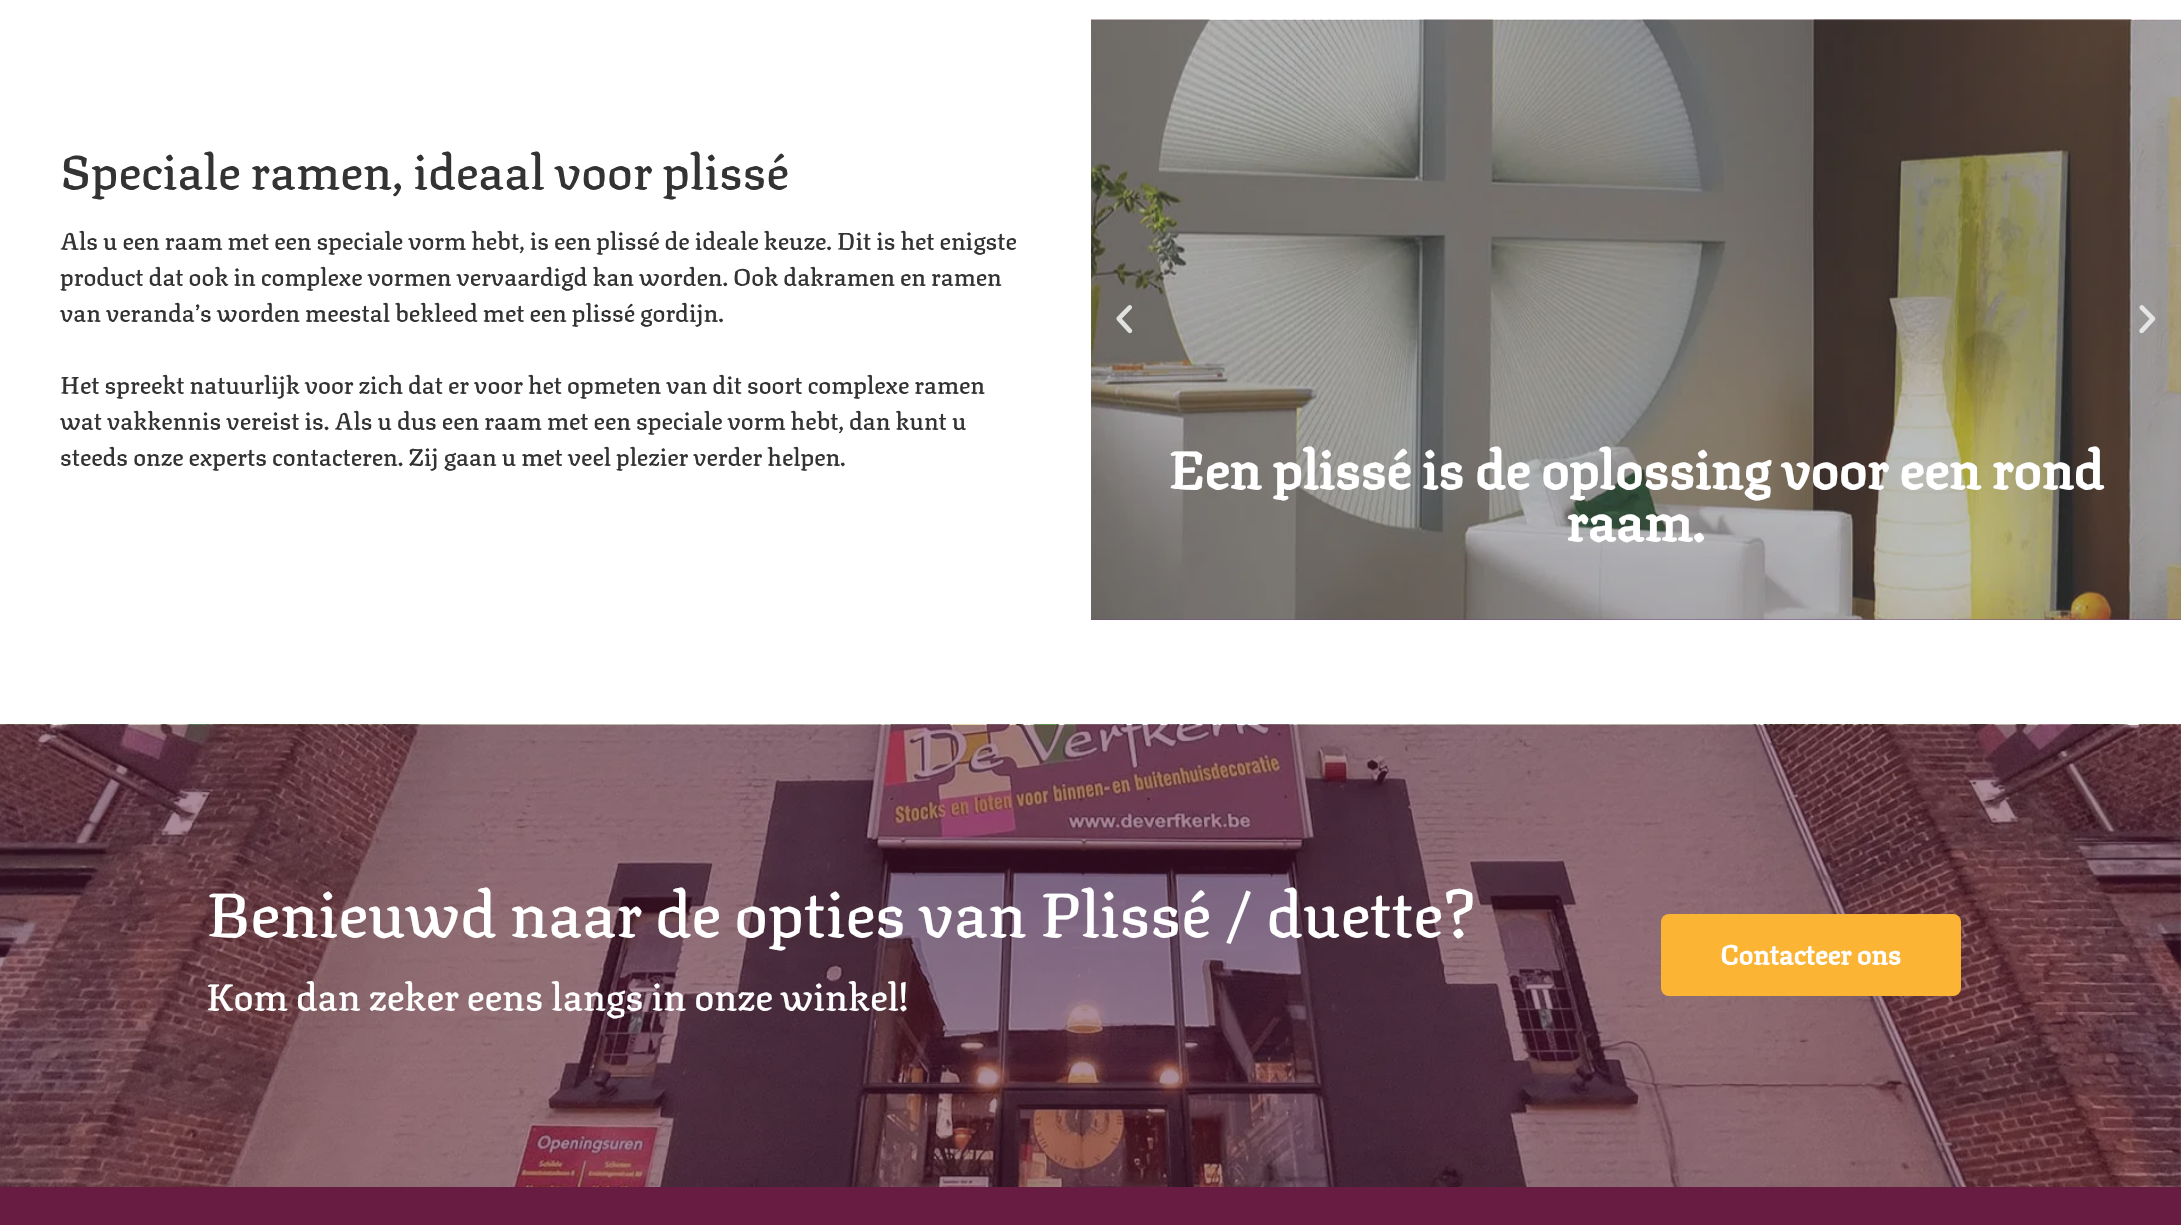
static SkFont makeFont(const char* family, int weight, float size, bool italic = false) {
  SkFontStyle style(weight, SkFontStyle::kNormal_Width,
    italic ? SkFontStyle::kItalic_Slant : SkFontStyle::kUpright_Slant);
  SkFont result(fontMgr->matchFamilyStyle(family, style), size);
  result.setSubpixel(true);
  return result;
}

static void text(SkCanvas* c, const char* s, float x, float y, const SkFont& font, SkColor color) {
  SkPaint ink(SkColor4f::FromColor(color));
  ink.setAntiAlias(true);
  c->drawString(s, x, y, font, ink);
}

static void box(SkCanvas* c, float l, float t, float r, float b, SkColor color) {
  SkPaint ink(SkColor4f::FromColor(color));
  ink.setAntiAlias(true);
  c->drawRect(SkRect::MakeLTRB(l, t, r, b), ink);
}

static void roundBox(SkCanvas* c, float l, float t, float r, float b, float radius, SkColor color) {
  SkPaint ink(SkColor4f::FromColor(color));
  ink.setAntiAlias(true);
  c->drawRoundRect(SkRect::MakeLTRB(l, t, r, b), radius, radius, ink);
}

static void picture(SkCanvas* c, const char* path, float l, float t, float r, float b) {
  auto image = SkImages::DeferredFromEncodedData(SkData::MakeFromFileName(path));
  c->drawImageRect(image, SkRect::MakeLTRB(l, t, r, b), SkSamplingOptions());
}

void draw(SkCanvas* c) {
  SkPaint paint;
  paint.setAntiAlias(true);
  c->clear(0xffffffff);
  SkFont face1 = makeFont("Texturina", 500, 48);
  text(c, "Speciale ramen, ideaal voor plissé", 60, 190, face1, 0xff333333);
  SkFont face2 = makeFont("Texturina", 500, 24);
  text(c, "Als u een raam met een speciale vorm hebt, is een plissé de ideale keuze. Dit is het enigste", 60, 250, face2, 0xff333333);
  text(c, "product dat ook in complexe vormen vervaardigd kan worden. Ook dakramen en ramen", 60, 286, face2, 0xff333333);
  text(c, "van veranda’s worden meestal bekleed met een plissé gordijn.", 60, 322, face2, 0xff333333);
  text(c, "Het spreekt natuurlijk voor zich dat er voor het opmeten van dit soort complexe ramen", 60, 394, face2, 0xff333333);
  text(c, "wat vakkennis vereist is. Als u dus een raam met een speciale vorm hebt, dan kunt u", 60, 430, face2, 0xff333333);
  text(c, "steeds onze experts contacteren. Zij gaan u met veel plezier verder helpen.", 60, 466, face2, 0xff333333);
  box(c, 1091, 20, 2181, 620, 0xff704888);
  picture(c, "img_03.png", 1091, 19, 2181, 620);
  picture(c, "img_01.png", 1116, 305, 1133, 334);
  picture(c, "img_02.png", 2139, 305, 2156, 334);
  SkFont face3 = makeFont("Texturina", 700, 52.5f);
  text(c, "Een plissé is de oplossing voor een rond", 1168, 490, face3, 0xffffffff);
  text(c, "raam.", 1566, 542, face3, 0xffffffff);
  picture(c, "img_04.png", 0, 724, 2181, 1187);
  SkFont face4 = makeFont("Texturina", 500, 63);
  text(c, "Benieuwd naar de opties van Plissé / duette?", 206, 938, face4, 0xffffffff);
  SkFont face5 = makeFont("Texturina", 500, 37.5f);
  text(c, "Kom dan zeker eens langs in onze winkel!", 206, 1011, face5, 0xffffffff);
  roundBox(c, 1661, 914, 1961, 996, 8, 0xfffbb434);
  SkFont face6 = makeFont("Texturina", 700, 27);
  text(c, "Contacteer ons", 1720, 965, face6, 0xffffffff);
  box(c, 0, 1187, 2181, 1225, 0xff681c42);
}
